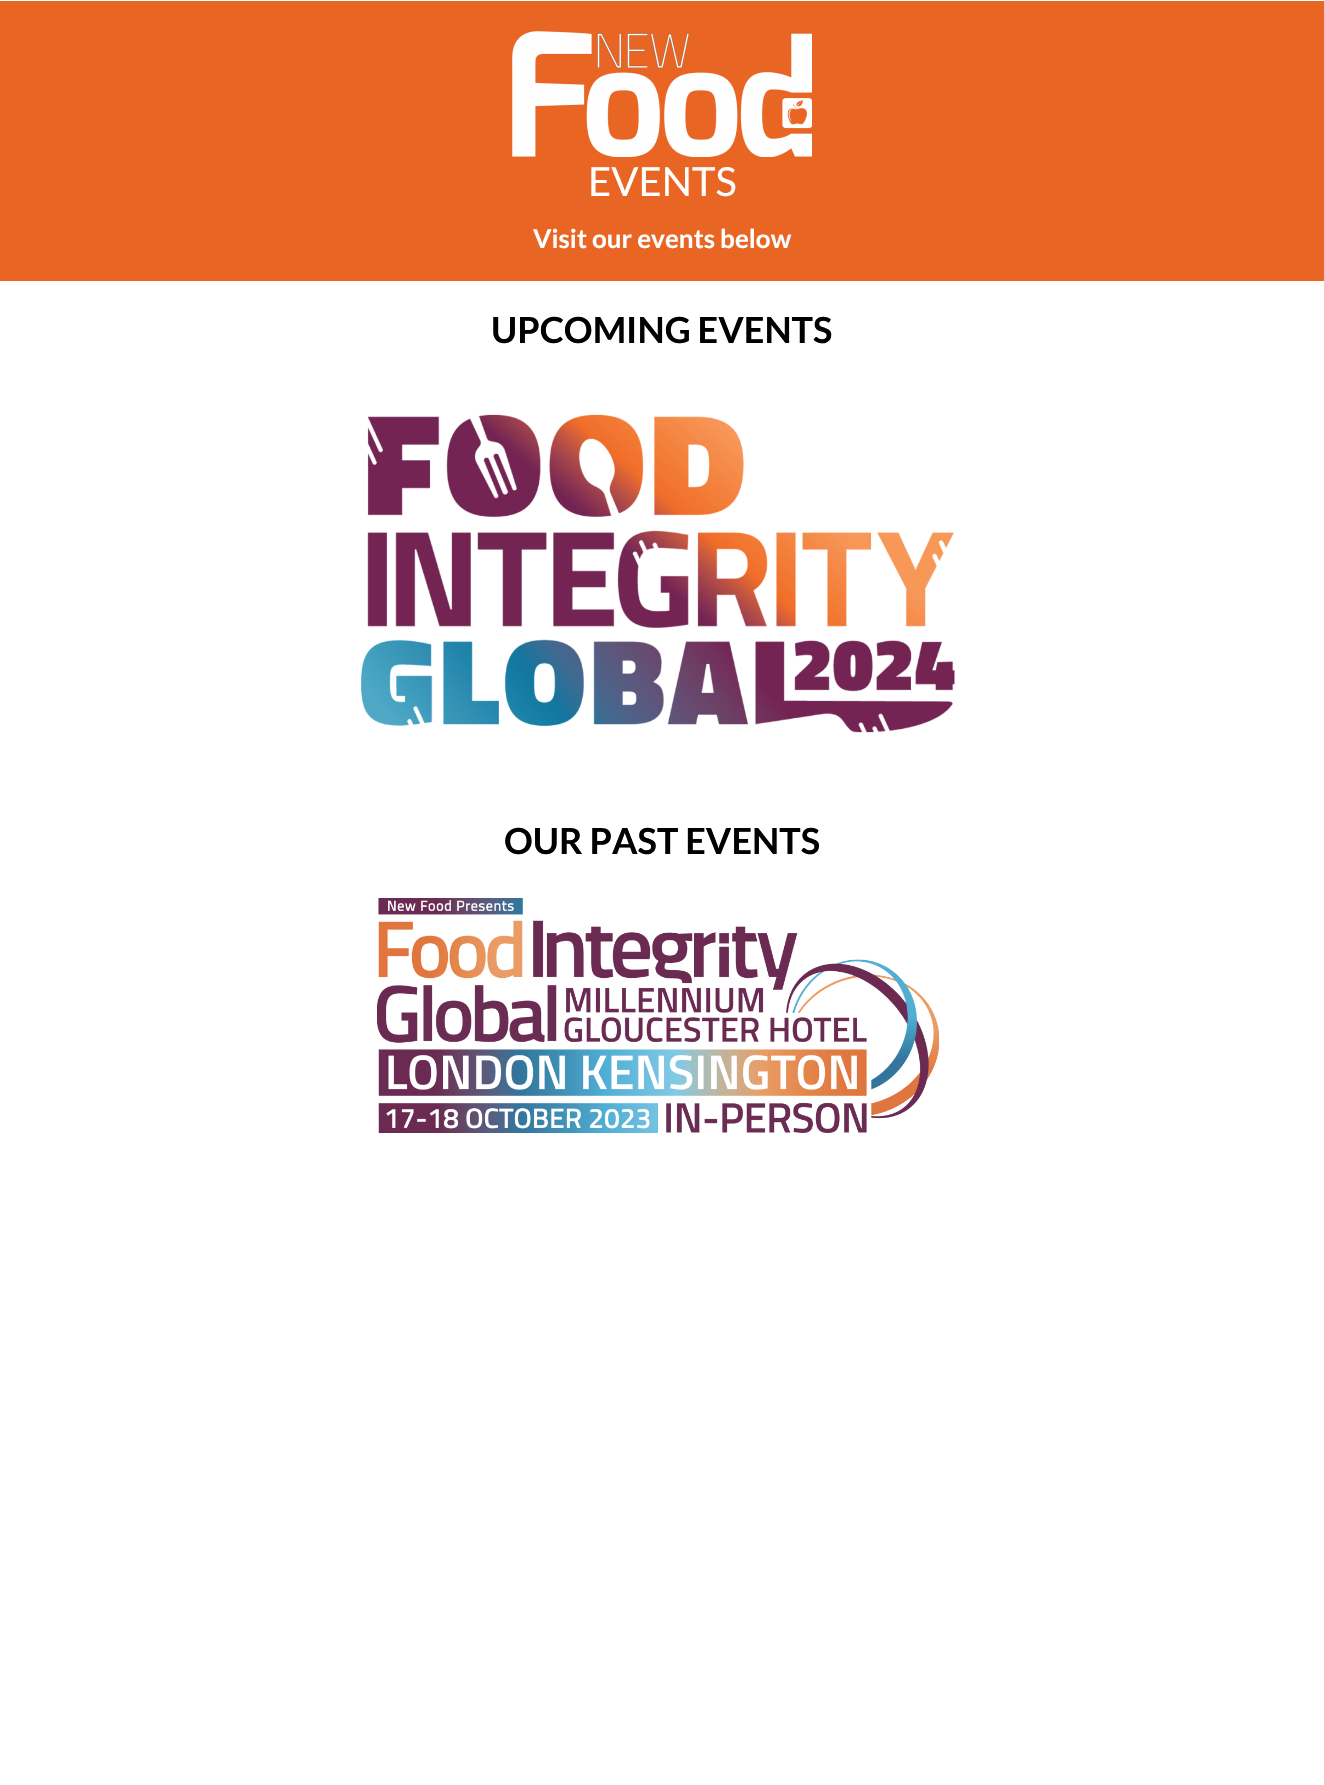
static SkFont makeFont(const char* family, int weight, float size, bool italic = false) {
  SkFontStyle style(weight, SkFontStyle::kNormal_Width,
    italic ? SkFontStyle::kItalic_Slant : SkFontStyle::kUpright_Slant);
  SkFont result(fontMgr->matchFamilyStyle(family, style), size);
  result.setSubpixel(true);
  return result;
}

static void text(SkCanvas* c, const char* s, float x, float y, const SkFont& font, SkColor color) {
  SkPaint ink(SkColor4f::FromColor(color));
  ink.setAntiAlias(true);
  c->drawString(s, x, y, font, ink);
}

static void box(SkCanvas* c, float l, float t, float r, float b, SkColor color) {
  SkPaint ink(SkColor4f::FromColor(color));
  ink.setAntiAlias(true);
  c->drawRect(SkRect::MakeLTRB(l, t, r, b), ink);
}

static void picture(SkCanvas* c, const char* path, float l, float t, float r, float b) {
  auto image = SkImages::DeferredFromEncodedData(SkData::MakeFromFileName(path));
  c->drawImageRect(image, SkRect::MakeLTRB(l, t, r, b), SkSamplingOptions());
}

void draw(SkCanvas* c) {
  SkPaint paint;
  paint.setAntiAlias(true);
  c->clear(0xffffffff);
  box(c, 0, 1, 1324, 281, 0xffe96524);
  picture(c, "img_01.png", 512, 31, 812, 157);
  SkFont face1 = makeFont("Lato", 400, 40);
  text(c, "EVENTS", 588, 196, face1, 0xffffffff);
  SkFont face2 = makeFont("Lato", 700, 26);
  text(c, "Visit our events below", 533, 248, face2, 0xffffffff);
  SkFont face3 = makeFont("Lato", 700, 36);
  text(c, "UPCOMING EVENTS", 491, 343, face3, 0xff000000);
  picture(c, "img_02.png", 361, 414, 955, 733);
  text(c, "OUR PAST EVENTS", 504, 854, face3, 0xff000000);
  picture(c, "img_03.png", 377, 898, 939, 1133);
}
